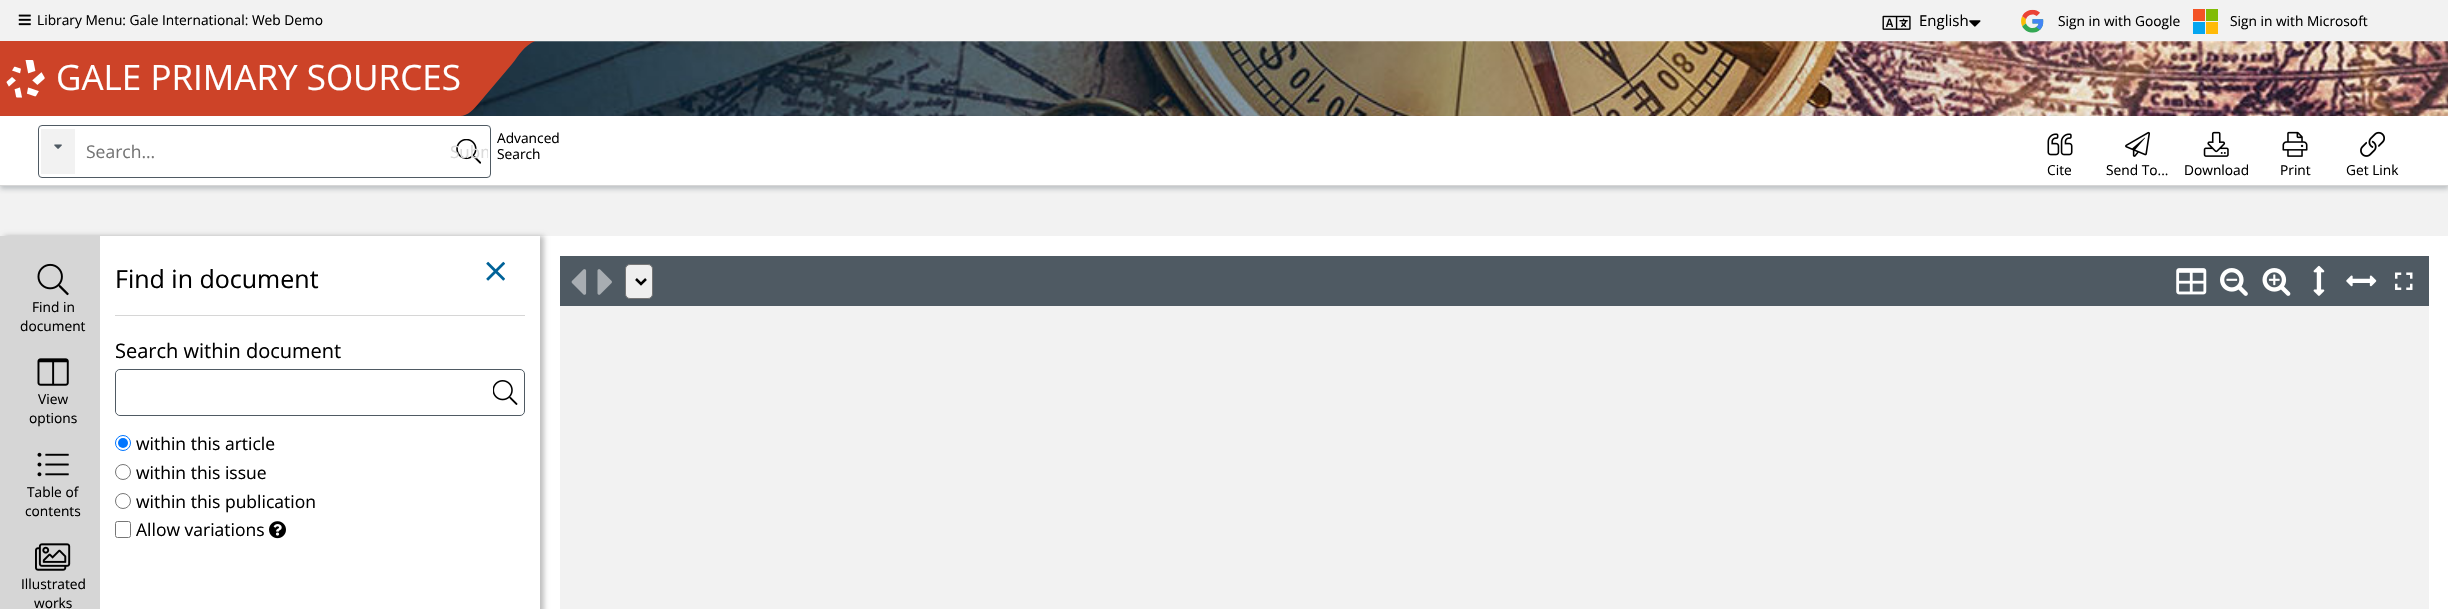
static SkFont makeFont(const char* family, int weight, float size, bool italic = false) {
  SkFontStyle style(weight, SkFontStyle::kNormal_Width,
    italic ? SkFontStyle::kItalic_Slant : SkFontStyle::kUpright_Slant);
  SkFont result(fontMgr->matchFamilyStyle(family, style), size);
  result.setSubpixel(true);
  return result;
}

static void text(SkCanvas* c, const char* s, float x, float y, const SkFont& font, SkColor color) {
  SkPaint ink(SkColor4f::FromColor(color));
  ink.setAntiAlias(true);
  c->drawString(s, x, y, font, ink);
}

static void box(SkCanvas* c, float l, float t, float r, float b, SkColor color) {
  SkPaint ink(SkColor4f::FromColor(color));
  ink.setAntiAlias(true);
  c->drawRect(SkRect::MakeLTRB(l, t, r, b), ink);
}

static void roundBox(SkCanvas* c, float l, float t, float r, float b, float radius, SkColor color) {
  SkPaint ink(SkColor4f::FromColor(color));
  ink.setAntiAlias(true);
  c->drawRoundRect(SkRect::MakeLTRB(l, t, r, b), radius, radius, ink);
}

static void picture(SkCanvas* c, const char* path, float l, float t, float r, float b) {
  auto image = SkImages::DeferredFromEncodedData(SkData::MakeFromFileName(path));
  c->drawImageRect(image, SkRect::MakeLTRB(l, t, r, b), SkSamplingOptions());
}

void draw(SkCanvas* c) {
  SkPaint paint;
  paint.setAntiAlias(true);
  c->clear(0xffffffff);
  box(c, 0, 0, 2448, 42, 0xfff2f2f2);
  picture(c, "img_01.png", 18, 14, 31, 26);
  SkFont face1 = makeFont("Open Sans", 400, 13.75f);
  text(c, "Library Menu: Gale International: Web Demo", 37, 25, face1, 0xff000000);
  picture(c, "img_02.png", 1882, 15, 1911, 30);
  SkFont face2 = makeFont("Open Sans", 400, 15);
  text(c, "English", 1919, 26, face2, 0xff000000);
  picture(c, "img_03.png", 1969, 20, 1981, 27);
  picture(c, "img_04.png", 2021, 9, 2044, 33);
  text(c, "Sign in with Google", 2058, 26, face1, 0xff000000);
  box(c, 2193, 9, 2205, 21, 0xfff35325);
  box(c, 2206, 9, 2218, 21, 0xff81bc06);
  box(c, 2193, 22, 2205, 34, 0xff05a6f0);
  box(c, 2206, 22, 2218, 34, 0xffffba08);
  text(c, "Sign in with Microsoft", 2230, 26, face1, 0xff000000);
  picture(c, "img_05.png", 461, 41, 2448, 116);
  paint.setColor(0xffcd4328);
  c->drawPath(SkPathBuilder().moveTo(460, 41).lineTo(535, 41).cubicTo(524, 46, 519, 55, 512, 64).lineTo(479, 103).cubicTo(474, 109, 468, 116, 460, 116).close().detach(), paint);
  box(c, 0, 41, 461, 116, 0xffcd4328);
  picture(c, "img_06.png", 6, 60, 45, 98);
  SkFont face3 = makeFont("Open Sans", 400, 35);
  text(c, "GALE PRIMARY SOURCES", 56, 90, face3, 0xffffffff);
  box(c, 0, 186, 2448, 236, 0xfff2f2f2);
  paint.setColor(0x544f5a63);
  paint.setMaskFilter(SkMaskFilter::MakeBlur(kNormal_SkBlurStyle, 2.5f));
  c->drawRect(SkRect::MakeLTRB(0, 119, 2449, 189), paint);
  paint.setMaskFilter(nullptr);
  box(c, 0, 116, 2448, 185, 0xffffffff);
  box(c, 0, 185, 2448, 186, 0xffd6d6d6);
  paint.setStyle(SkPaint::kStroke_Style);
  paint.setStrokeWidth(1);
  paint.setColor(0xff4f5a63);
  c->drawRoundRect(SkRect::MakeLTRB(38.5f, 125.5f, 490.5f, 177.5f), 3.5f, 3.5f, paint);
  box(c, 41, 129, 75, 174, 0xfff2f2f2);
  picture(c, "img_07.png", 54, 144, 62, 149);
  SkFont face4 = makeFont("Open Sans", 400, 17.5f);
  text(c, "Search...", 86, 158, face4, 0xff757575);
  picture(c, "img_08.png", 456, 139, 481, 164);
  c->save();
  c->clipPath(SkPathBuilder().moveTo(455, 139).lineTo(483, 139).cubicTo(486, 139, 488, 141, 488, 144).lineTo(488, 159).cubicTo(488, 162, 486, 164, 483, 164).lineTo(455, 164).cubicTo(452, 164, 450, 162, 450, 159).lineTo(450, 144).cubicTo(450, 141, 452, 139, 455, 139).close().detach(), true);
  SkFont face5 = makeFont("Open Sans", 400, 17);
  text(c, "Subm", 450, 158, face5, 0xffdadada);
  c->restore();
  text(c, "Advanced", 497, 143, face1, 0xff000000);
  text(c, "Search", 497, 159, face1, 0xff000000);
  picture(c, "img_09.png", 2047, 133, 2073, 156);
  text(c, "Cite", 2047, 175, face1, 0xff000000);
  picture(c, "img_10.png", 2125, 131, 2150, 157);
  text(c, "Send To...", 2106, 175, face1, 0xff000000);
  picture(c, "img_11.png", 2203, 131, 2229, 157);
  text(c, "Download", 2184, 175, face1, 0xff000000);
  picture(c, "img_12.png", 2282, 131, 2308, 157);
  text(c, "Print", 2280, 175, face1, 0xff000000);
  picture(c, "img_13.png", 2360, 131, 2385, 157);
  text(c, "Get Link", 2346, 175, face1, 0xff000000);
  paint.setStyle(SkPaint::kFill_Style);
  paint.setColor(0x40000000);
  paint.setMaskFilter(SkMaskFilter::MakeBlur(kNormal_SkBlurStyle, 2.5f));
  c->drawRect(SkRect::MakeLTRB(4, 236, 544, 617), paint);
  paint.setMaskFilter(nullptr);
  box(c, 0, 236, 100, 609, 0xffd6d6d6);
  picture(c, "img_14.png", 37, 263, 69, 296);
  text(c, "Find in", 32, 312, face1, 0xff000000);
  text(c, "document", 20, 331, face1, 0xff000000);
  picture(c, "img_15.png", 37, 358, 69, 386);
  text(c, "View", 38, 404, face1, 0xff000000);
  text(c, "options", 29, 423, face1, 0xff000000);
  picture(c, "img_16.png", 37, 452, 69, 477);
  text(c, "Table of", 27, 497, face1, 0xff000000);
  text(c, "contents", 25, 516, face1, 0xff000000);
  picture(c, "img_17.png", 35, 543, 71, 571);
  text(c, "Illustrated", 21, 589, face1, 0xff000000);
  text(c, "works", 34, 608, face1, 0xff000000);
  box(c, 100, 236, 540, 609, 0xffffffff);
  box(c, 115, 315, 525, 316, 0xffd6d6d6);
  SkFont face6 = makeFont("Open Sans", 400, 25);
  text(c, "Find in document", 115, 288, face6, 0xff000000);
  SkFont face7 = makeFont("Open Sans", 400, 20);
  text(c, "Search within document", 115, 358, face7, 0xff000000);
  paint.setStyle(SkPaint::kStroke_Style);
  paint.setColor(0xff4f5a63);
  c->drawRoundRect(SkRect::MakeLTRB(115.5f, 369.5f, 524.5f, 415.5f), 4.5f, 4.5f, paint);
  roundBox(c, 116, 370, 493, 415, 5, 0xffffffff);
  picture(c, "img_18.png", 493, 380, 518, 405);
  paint.setColor(0xff0075ff);
  c->drawCircle(123, 443, 7.5f, paint);
  paint.setStyle(SkPaint::kFill_Style);
  c->drawCircle(123, 443, 5, paint);
  text(c, "within this article", 136, 450, face4, 0xff000000);
  paint.setStyle(SkPaint::kStroke_Style);
  paint.setColor(0xff767676);
  c->drawCircle(123, 472, 7.5f, paint);
  text(c, "within this issue", 136, 479, face4, 0xff000000);
  c->drawCircle(123, 501, 7.5f, paint);
  text(c, "within this publication", 136, 508, face4, 0xff000000);
  c->drawRoundRect(SkRect::MakeLTRB(115.5f, 521.5f, 130.5f, 537.5f), 2, 2, paint);
  text(c, "Allow variations", 136, 536, face4, 0xff000000);
  picture(c, "img_19.png", 269, 521, 286, 539);
  picture(c, "img_20.png", 486, 261, 505, 281);
  box(c, 560, 306, 2429, 609, 0xfff2f2f2);
  box(c, 560, 256, 2429, 306, 0xff4f5a63);
  picture(c, "img_21.png", 571, 269, 587, 295);
  picture(c, "img_22.png", 597, 269, 612, 295);
  paint.setStyle(SkPaint::kFill_Style);
  paint.setColor(0xffefefef);
  c->drawRoundRect(SkRect::MakeLTRB(625.5f, 264.5f, 652.5f, 298.5f), 4.5f, 4.5f, paint);
  paint.setStyle(SkPaint::kStroke_Style);
  paint.setColor(0xff767676);
  c->drawRoundRect(SkRect::MakeLTRB(625.5f, 264.5f, 652.5f, 298.5f), 4.5f, 4.5f, paint);
  paint.setStrokeWidth(2.5f);
  paint.setColor(0xff000000);
  c->drawPath(SkPathBuilder().moveTo(636, 279).lineTo(641, 284).lineTo(646, 279).detach(), paint);
  picture(c, "img_23.png", 2176, 268, 2207, 295);
  picture(c, "img_24.png", 2220, 268, 2248, 296);
  picture(c, "img_25.png", 2262, 268, 2291, 296);
  picture(c, "img_26.png", 2313, 265, 2325, 296);
  picture(c, "img_27.png", 2346, 275, 2377, 287);
  picture(c, "img_28.png", 2395, 272, 2413, 290);
}
